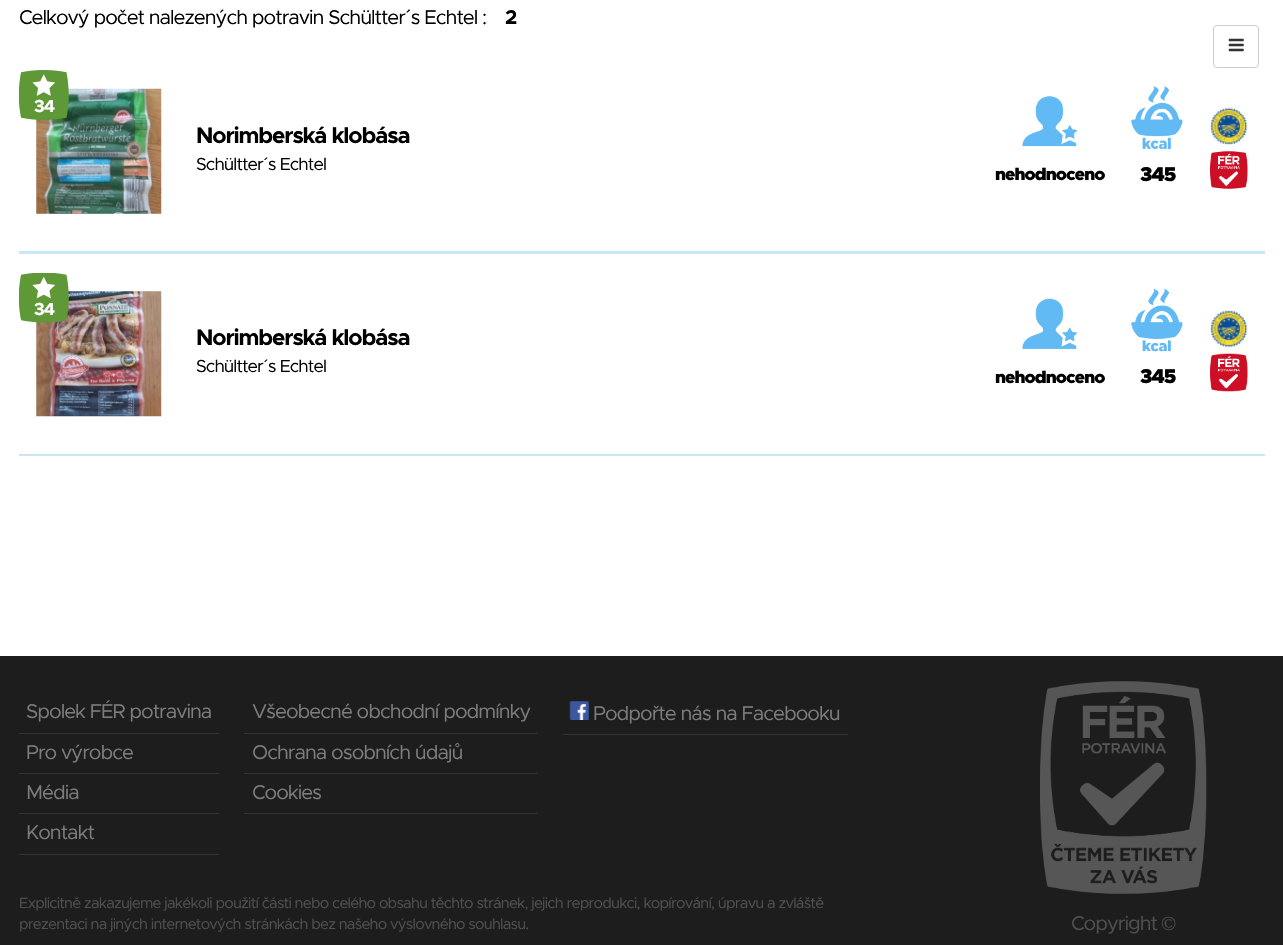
static SkFont makeFont(const char* family, int weight, float size, bool italic = false) {
  SkFontStyle style(weight, SkFontStyle::kNormal_Width,
    italic ? SkFontStyle::kItalic_Slant : SkFontStyle::kUpright_Slant);
  SkFont result(fontMgr->matchFamilyStyle(family, style), size);
  result.setSubpixel(true);
  return result;
}

static void spacedText(SkCanvas* c, const char* s, float x, float y, const SkFont& font, const SkPaint& ink, float letter, float word) {
  std::vector<SkGlyphID> glyphs(font.countText(s, strlen(s), SkTextEncoding::kUTF8));
  std::vector<float> xs(glyphs.size());
  font.textToGlyphs(s, strlen(s), SkTextEncoding::kUTF8, glyphs);
  font.getXPos(glyphs, xs, x);
  float extra = 0;
  for (size_t i = 0; i < glyphs.size(); i++) {
    xs[i] += extra;
    extra += letter + word * (glyphs[i] == font.unicharToGlyph(' '));
  }
  c->drawTextBlob(SkTextBlob::MakeFromPosHGlyphs(glyphs, xs, y, font), 0, 0, ink);
}

static void box(SkCanvas* c, float l, float t, float r, float b, SkColor color) {
  SkPaint ink(SkColor4f::FromColor(color));
  ink.setAntiAlias(true);
  c->drawRect(SkRect::MakeLTRB(l, t, r, b), ink);
}

static void picture(SkCanvas* c, const char* path, float l, float t, float r, float b) {
  auto image = SkImages::DeferredFromEncodedData(SkData::MakeFromFileName(path));
  c->drawImageRect(image, SkRect::MakeLTRB(l, t, r, b), SkSamplingOptions());
}

void draw(SkCanvas* c) {
  SkPaint paint;
  paint.setAntiAlias(true);
  c->clear(0xffffffff);
  SkFont face1 = makeFont("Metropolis", 400, 20);
  paint.setColor(0xff000000);
  spacedText(c, "Celkový počet nalezených potravin Schültter´s Echtel :", 19, 24, face1, paint, -1, 0);
  SkFont face2 = makeFont("Metropolis", 700, 20);
  spacedText(c, "2", 505, 24, face2, paint, -1, 0);
  box(c, 19, 251, 1265, 254, 0xffc8e7fb);
  picture(c, "img_01.png", 36, 88, 162, 214);
  picture(c, "img_02.png", 19, 70, 69, 120);
  SkFont face3 = makeFont("Metropolis", 700, 17.5f);
  paint.setColor(0xffffffff);
  spacedText(c, "34", 34, 112, face3, paint, -0.9f, 0);
  SkFont face4 = makeFont("Metropolis", 700, 22.5f);
  paint.setColor(0xff000000);
  spacedText(c, "Norimberská klobása", 196, 143, face4, paint, -1.1f, 0);
  SkFont face5 = makeFont("Metropolis", 400, 17.5f);
  spacedText(c, "Schültter´s Echtel", 196, 170, face5, paint, -0.9f, 0);
  picture(c, "img_03.png", 1210, 107, 1248, 145);
  picture(c, "img_04.png", 1210, 151, 1248, 189);
  picture(c, "img_05.png", 1022, 96, 1078, 147);
  SkFont face6 = makeFont("Metropolis", 900, 17.5f);
  spacedText(c, "nehodnoceno", 995, 180, face6, paint, -0.9f, 0);
  picture(c, "img_06.png", 1131, 86, 1183, 150);
  SkFont face7 = makeFont("Metropolis", 900, 20);
  spacedText(c, "345", 1140, 181, face7, paint, -1, 0);
  box(c, 19, 454, 1265, 456, 0xffc8e7fb);
  picture(c, "img_07.png", 36, 291, 162, 417);
  picture(c, "img_08.png", 19, 273, 69, 323);
  paint.setColor(0xffffffff);
  spacedText(c, "34", 34, 315, face3, paint, -0.9f, 0);
  paint.setColor(0xff000000);
  spacedText(c, "Norimberská klobása", 196, 345, face4, paint, -1.1f, 0);
  spacedText(c, "Schültter´s Echtel", 196, 372, face5, paint, -0.9f, 0);
  picture(c, "img_09.png", 1210, 310, 1248, 348);
  picture(c, "img_10.png", 1210, 353, 1248, 392);
  picture(c, "img_11.png", 1022, 298, 1078, 349);
  spacedText(c, "nehodnoceno", 995, 383, face6, paint, -0.9f, 0);
  picture(c, "img_12.png", 1131, 288, 1183, 352);
  spacedText(c, "345", 1140, 383, face7, paint, -1, 0);
  paint.setStyle(SkPaint::kStroke_Style);
  paint.setStrokeWidth(1);
  paint.setColor(0xffcccccc);
  c->drawRoundRect(SkRect::MakeLTRB(1213.5f, 25.5f, 1258.5f, 67.5f), 3.5f, 3.5f, paint);
  picture(c, "img_13.png", 1228, 38, 1244, 52);
  box(c, 0, 656, 1283, 945, 0xff1d1d1d);
  box(c, 19, 733, 219, 734, 0xff333333);
  paint.setStyle(SkPaint::kFill_Style);
  paint.setColor(0xff7d7d7d);
  spacedText(c, "Spolek FÉR potravina", 26, 718, face1, paint, -1, 0);
  box(c, 19, 773, 219, 774, 0xff333333);
  spacedText(c, "Pro výrobce", 26, 759, face1, paint, -1, 0);
  box(c, 19, 813, 219, 814, 0xff333333);
  spacedText(c, "Média", 26, 799, face1, paint, -1, 0);
  box(c, 19, 854, 219, 855, 0xff333333);
  spacedText(c, "Kontakt", 26, 839, face1, paint, -1, 0);
  box(c, 244, 733, 538, 734, 0xff333333);
  spacedText(c, "Všeobecné obchodní podmínky", 252, 718, face1, paint, -1, 0);
  box(c, 244, 773, 538, 774, 0xff333333);
  spacedText(c, "Ochrana osobních údajů", 252, 759, face1, paint, -1, 0);
  box(c, 244, 813, 538, 814, 0xff333333);
  spacedText(c, "Cookies", 252, 799, face1, paint, -1, 0);
  box(c, 563, 734, 848, 735, 0xff333333);
  picture(c, "img_14.png", 569, 701, 589, 720);
  spacedText(c, "Podpořte nás na Facebooku", 593, 720, face1, paint, -1, 0);
  SkFont face8 = makeFont("Metropolis", 400, 15);
  paint.setColor(0xff505050);
  spacedText(c, "Explicitně zakazujeme jakékoli použití části nebo celého obsahu těchto stránek, jejich reprodukci, kopírování, úpravu a zvláště", 19, 908, face8, paint, -0.75f, 0);
  spacedText(c, "prezentaci na jiných internetových stránkách bez našeho výslovného souhlasu.", 19, 929, face8, paint, -0.75f, 0);
  picture(c, "img_15.png", 1040, 681, 1207, 894);
  spacedText(c, "Copyright", 1071, 930, face1, paint, -1, 0);
  SkFont face9 = makeFont("Liberation Serif", 400, 20);
  spacedText(c, "©", 1161, 930, face9, paint, -1, 0);
}
